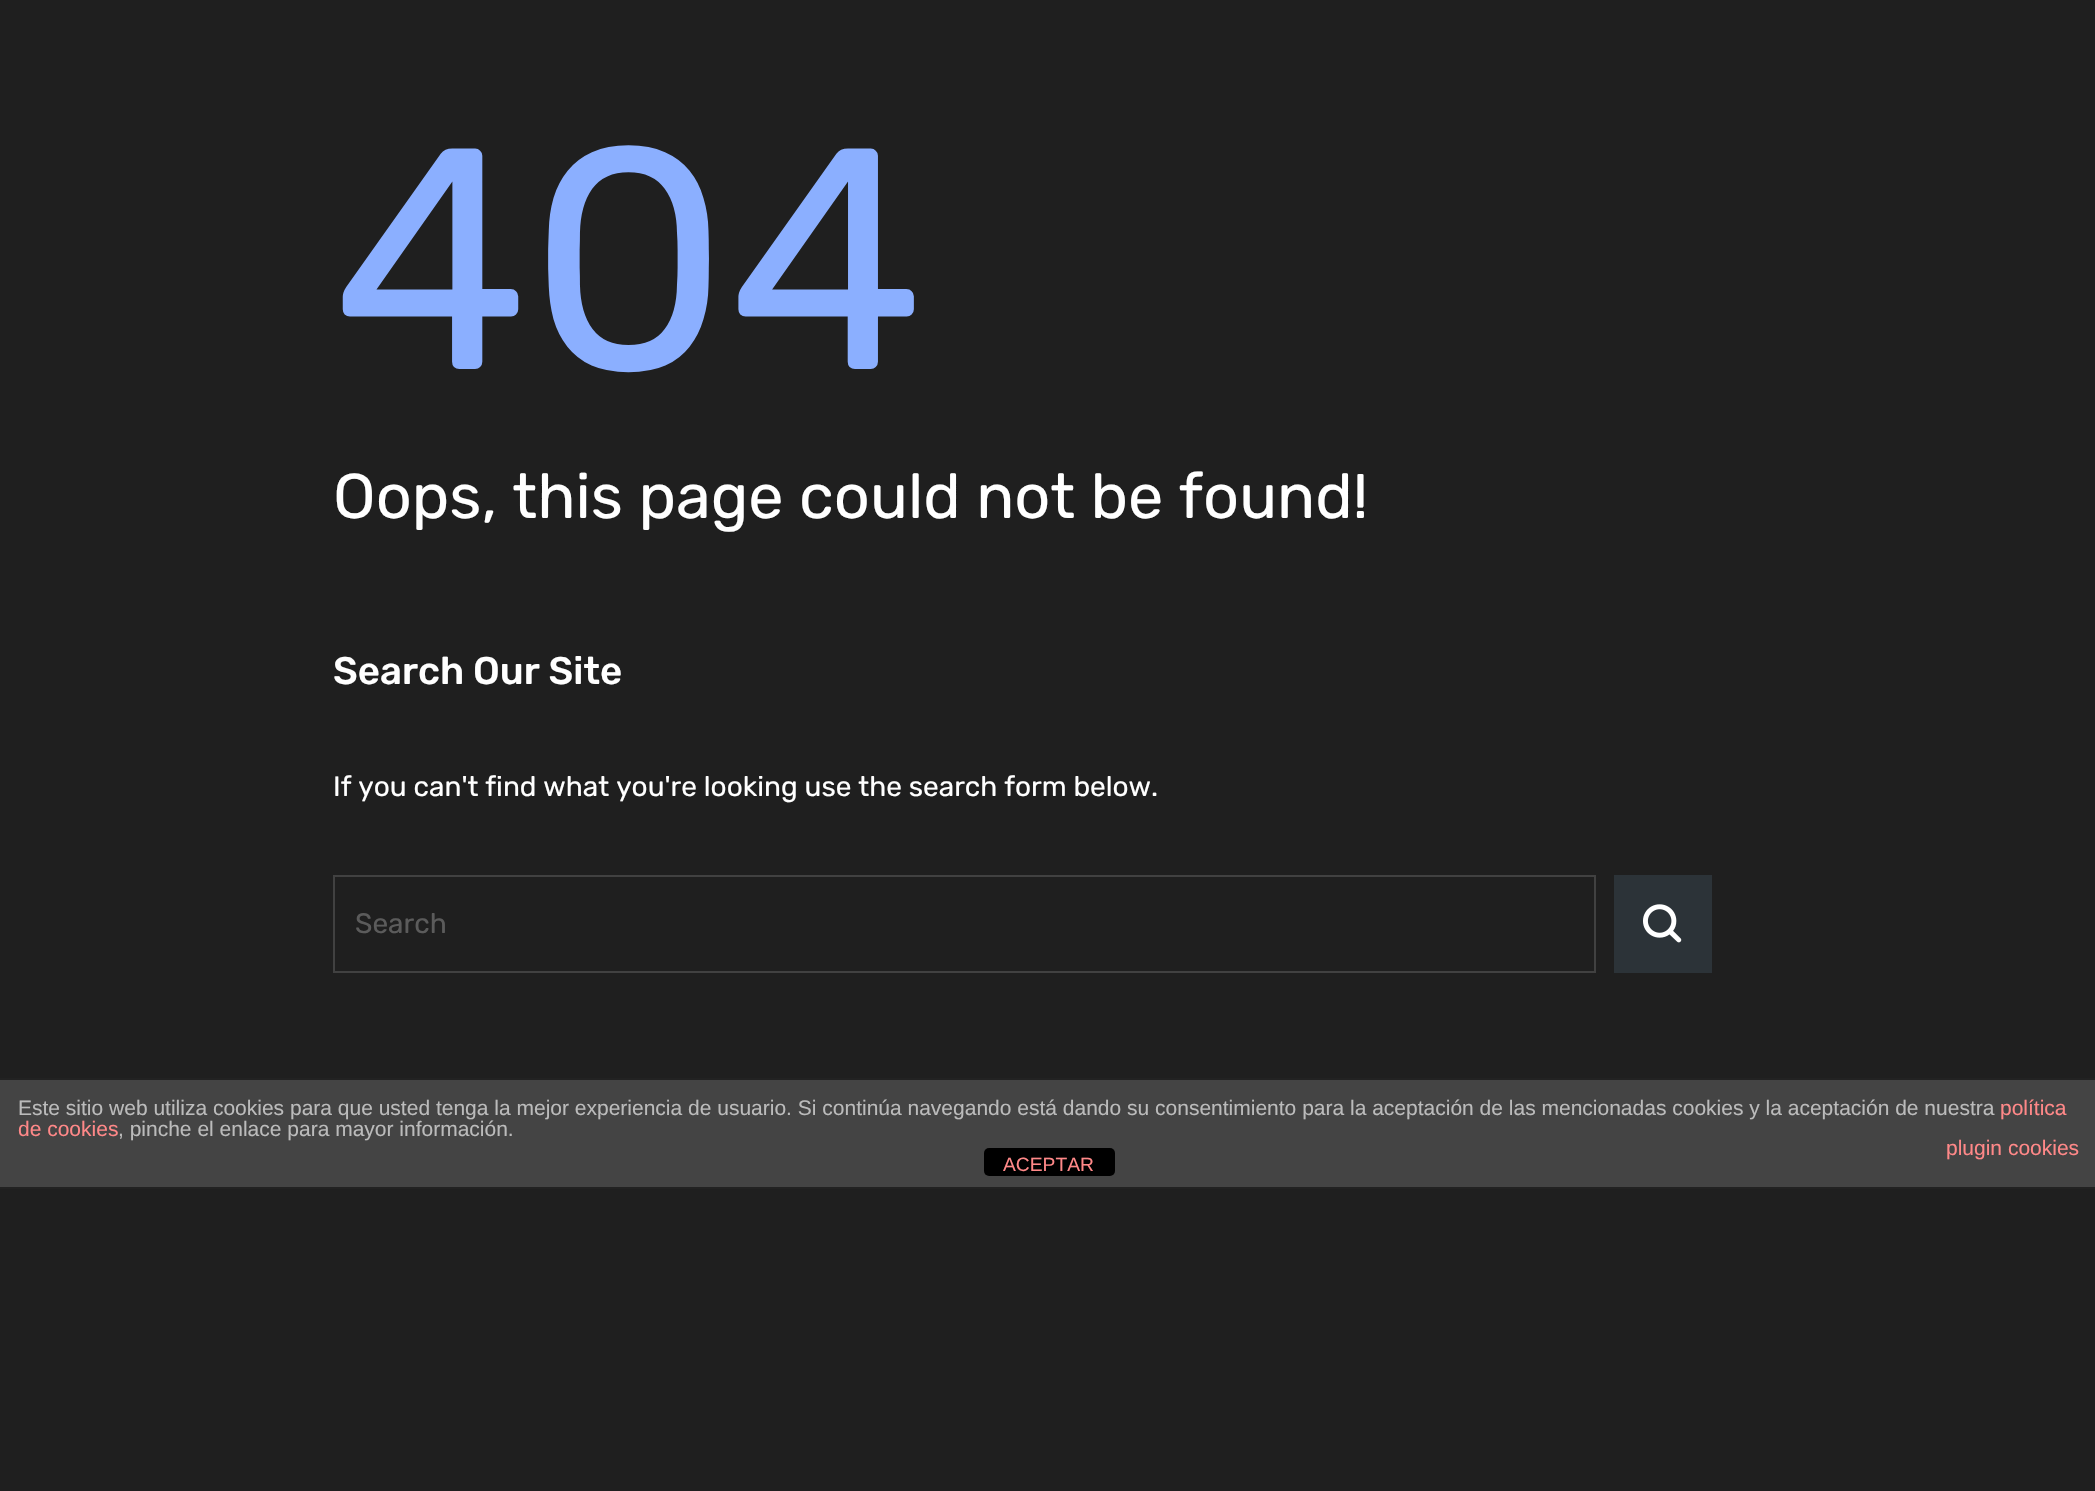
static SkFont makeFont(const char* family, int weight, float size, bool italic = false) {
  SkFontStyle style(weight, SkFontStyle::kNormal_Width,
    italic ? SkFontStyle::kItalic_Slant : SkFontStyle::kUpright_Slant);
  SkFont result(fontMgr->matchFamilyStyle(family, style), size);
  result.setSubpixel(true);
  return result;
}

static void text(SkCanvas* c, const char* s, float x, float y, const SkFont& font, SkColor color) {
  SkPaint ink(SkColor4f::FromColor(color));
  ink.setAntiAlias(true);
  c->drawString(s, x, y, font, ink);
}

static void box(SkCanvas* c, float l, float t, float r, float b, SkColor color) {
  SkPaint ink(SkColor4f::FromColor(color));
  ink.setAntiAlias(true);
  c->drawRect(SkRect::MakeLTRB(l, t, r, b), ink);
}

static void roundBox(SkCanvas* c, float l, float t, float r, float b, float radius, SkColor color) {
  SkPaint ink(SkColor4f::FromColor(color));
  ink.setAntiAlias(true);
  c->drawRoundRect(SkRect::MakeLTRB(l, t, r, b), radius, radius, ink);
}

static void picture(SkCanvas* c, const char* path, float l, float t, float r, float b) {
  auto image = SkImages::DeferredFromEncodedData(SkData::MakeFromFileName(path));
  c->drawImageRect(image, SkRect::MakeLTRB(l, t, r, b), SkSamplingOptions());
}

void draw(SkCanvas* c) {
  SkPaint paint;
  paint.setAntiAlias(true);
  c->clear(0xff1f1f1f);
  SkFont face1 = makeFont("Rubik", 400, 315);
  text(c, "404", 333, 369, face1, 0xff8bafff);
  SkFont face2 = makeFont("Rubik", 400, 63);
  text(c, "Oops, this page could not be found!", 333, 518, face2, 0xffffffff);
  SkFont face3 = makeFont("Rubik", 500, 38.5f);
  text(c, "Search Our Site", 333, 684, face3, 0xffffffff);
  SkFont face4 = makeFont("Rubik", 400, 28);
  text(c, "If you can't find what you're looking use the search form below.", 333, 796, face4, 0xffffffff);
  paint.setStyle(SkPaint::kStroke_Style);
  paint.setStrokeWidth(2);
  paint.setColor(0xff414141);
  c->drawRect(SkRect::MakeLTRB(334, 876, 1595, 972), paint);
  text(c, "Search", 355, 933, face4, 0xff5b5b5b);
  box(c, 1614, 875, 1712, 973, 0xff2c3338);
  picture(c, "img_01.png", 1643, 904, 1682, 943);
  box(c, 0, 1080, 2095, 1187, 0xff444444);
  box(c, 0, 1078, 2095, 1080, 0xff222222);
  box(c, 0, 1187, 2095, 1189, 0xff222222);
  SkFont face5 = makeFont("Liberation Sans", 400, 21);
  text(c, "Este sitio web utiliza cookies para que usted tenga la mejor experiencia de usuario. Si continúa navegando está dando su consentimiento para la aceptación de las mencionadas cookies y la aceptación de nuestra", 18, 1115, face5, 0xffbbbbbb);
  text(c, "política", 2000, 1115, face5, 0xffff8888);
  text(c, "de cookies", 18, 1136, face5, 0xffff8888);
  text(c, ", pinche el enlace para mayor información.", 118, 1136, face5, 0xffbbbbbb);
  text(c, "plugin cookies", 1946, 1155, face5, 0xffff8888);
  roundBox(c, 984, 1148, 1115, 1176, 5, 0xff000000);
  SkFont face6 = makeFont("Liberation Sans", 400, 19.25f);
  text(c, "ACEPTAR", 1003, 1171, face6, 0xffff8888);
}
